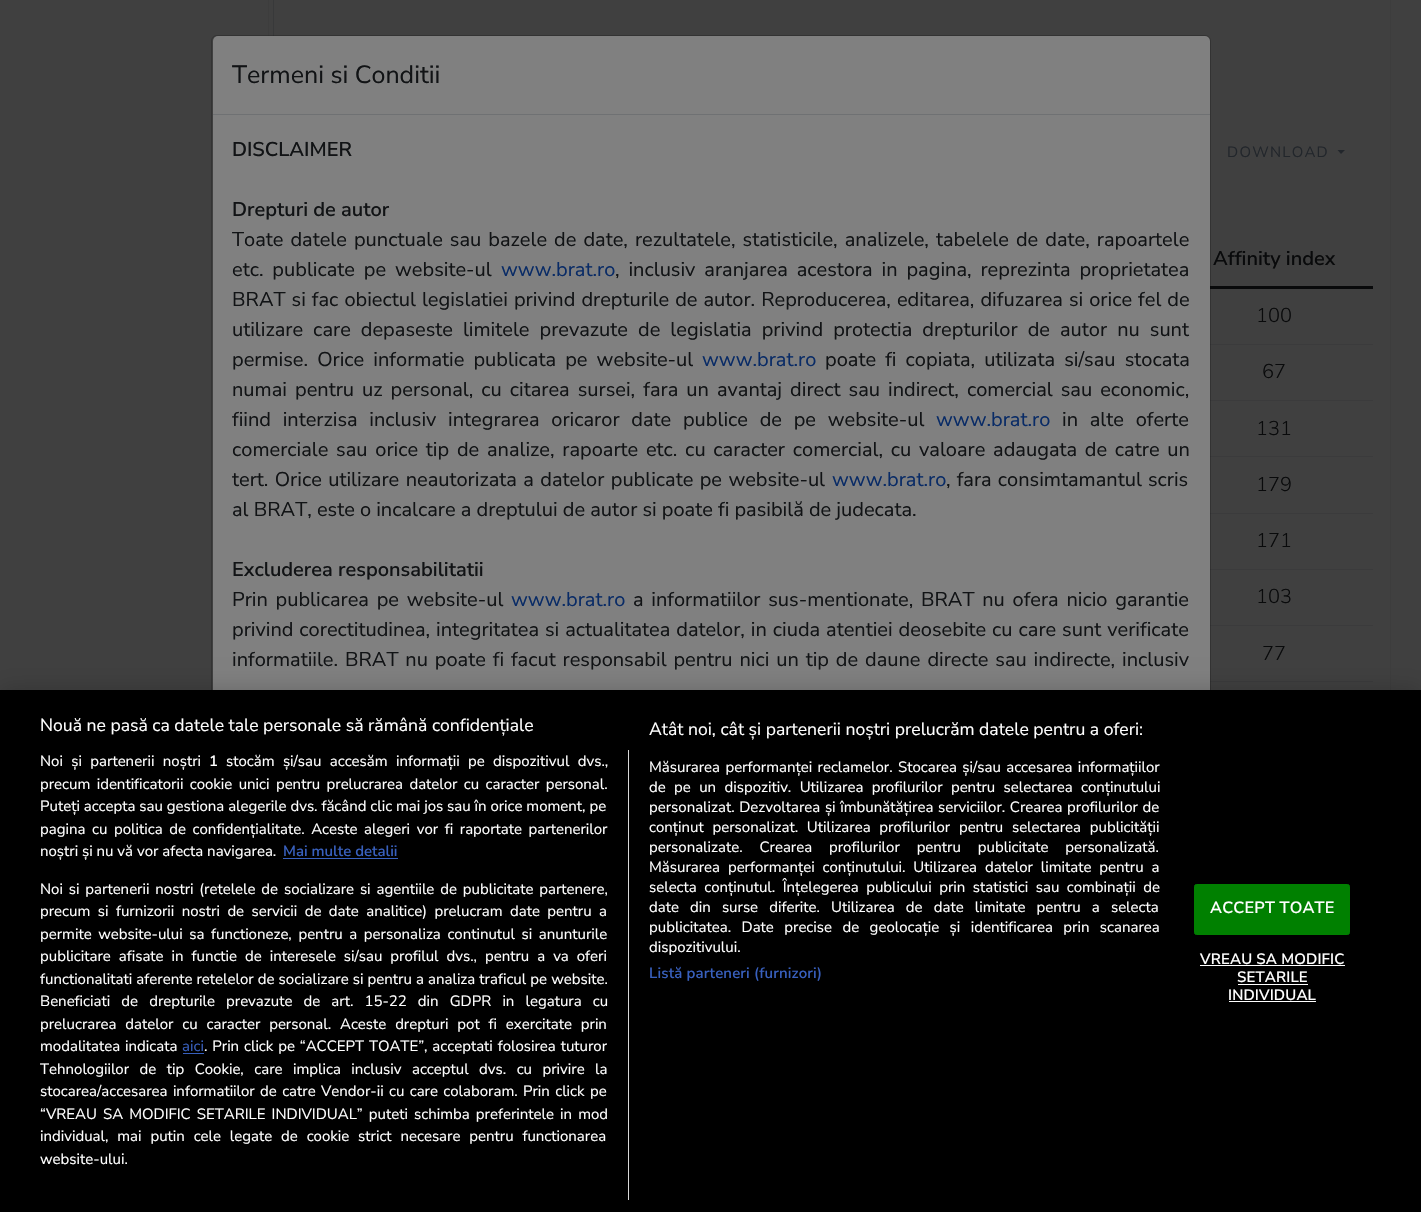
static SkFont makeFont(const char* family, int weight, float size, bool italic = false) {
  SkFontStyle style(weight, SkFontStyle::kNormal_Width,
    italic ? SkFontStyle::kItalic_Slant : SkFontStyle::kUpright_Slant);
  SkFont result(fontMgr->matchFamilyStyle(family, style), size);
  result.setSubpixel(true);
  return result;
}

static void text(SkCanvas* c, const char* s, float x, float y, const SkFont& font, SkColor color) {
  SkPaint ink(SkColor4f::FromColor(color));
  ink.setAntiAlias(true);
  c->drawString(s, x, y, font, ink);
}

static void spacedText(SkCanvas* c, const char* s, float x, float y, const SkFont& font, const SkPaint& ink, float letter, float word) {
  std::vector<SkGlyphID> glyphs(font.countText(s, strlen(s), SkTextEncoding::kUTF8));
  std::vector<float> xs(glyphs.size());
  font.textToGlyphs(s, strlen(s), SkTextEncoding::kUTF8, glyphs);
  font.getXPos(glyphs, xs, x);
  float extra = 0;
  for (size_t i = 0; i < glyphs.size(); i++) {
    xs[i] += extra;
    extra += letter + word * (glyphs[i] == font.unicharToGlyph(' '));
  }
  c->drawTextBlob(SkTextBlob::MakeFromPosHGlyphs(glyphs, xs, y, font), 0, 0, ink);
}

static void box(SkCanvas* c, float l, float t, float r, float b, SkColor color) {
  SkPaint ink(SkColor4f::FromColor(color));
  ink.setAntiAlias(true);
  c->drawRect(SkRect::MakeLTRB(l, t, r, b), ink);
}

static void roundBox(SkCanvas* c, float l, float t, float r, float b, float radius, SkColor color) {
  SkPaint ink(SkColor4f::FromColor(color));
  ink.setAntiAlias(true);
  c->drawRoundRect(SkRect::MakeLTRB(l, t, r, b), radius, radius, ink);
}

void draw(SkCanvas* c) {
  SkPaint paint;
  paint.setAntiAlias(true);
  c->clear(0xff404040);
  paint.setStyle(SkPaint::kStroke_Style);
  paint.setStrokeWidth(1);
  paint.setColor(0xff3d3d3d);
  c->drawRect(SkRect::MakeLTRB(268.5f, -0.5f, 1390.5f, 1059.5f), paint);
  roundBox(c, 213, 36, 1210, 833, 5, 0xff808080);
  box(c, 273, 0, 274, 36, 0xff38393a);
  box(c, 1210, 286, 1373, 289, 0xff090a0b);
  box(c, 1210, 344, 1373, 345, 0xff3b3b3c);
  box(c, 1210, 400, 1373, 401, 0xff3b3b3c);
  box(c, 1210, 456, 1373, 457, 0xff3b3b3c);
  box(c, 1210, 513, 1373, 514, 0xff3b3b3c);
  box(c, 1210, 569, 1373, 570, 0xff3b3b3c);
  box(c, 1210, 625, 1373, 626, 0xff3b3b3c);
  box(c, 1210, 681, 1373, 682, 0xff3b3b3c);
  paint.setColor(0x33000000);
  c->drawRoundRect(SkRect::MakeLTRB(211.5f, 35.5f, 1210.5f, 833.5f), 5.5f, 5.5f, paint);
  box(c, 213, 114, 1210, 115, 0xff6f7173);
  SkFont face1 = makeFont("Nunito Sans", 400, 25);
  text(c, "Termeni si Conditii", 232, 83, face1, 0xff111315);
  SkFont face2 = makeFont("Nunito Sans", 600, 20);
  text(c, "DISCLAIMER", 232, 156, face2, 0xff111315);
  text(c, "Drepturi de autor", 232, 216, face2, 0xff111315);
  SkFont face3 = makeFont("Nunito Sans", 400, 20);
  paint.setStyle(SkPaint::kFill_Style);
  paint.setColor(0xff111315);
  spacedText(c, "Toate datele punctuale sau bazele de date, rezultatele, statisticile, analizele, tabelele de date, rapoartele", 232, 246, face3, paint, 0, 1.9f);
  spacedText(c, "etc. publicate pe website-ul", 232, 276, face3, paint, 0, 3.75f);
  text(c, "www.brat.ro", 501, 276, face3, 0xff092b66);
  spacedText(c, ", inclusiv aranjarea acestora in pagina, reprezinta proprietatea", 615, 276, face3, paint, 0, 3.75f);
  spacedText(c, "BRAT si fac obiectul legislatiei privind drepturile de autor. Reproducerea, editarea, difuzarea si orice fel de", 232, 306, face3, paint, 0, 0.9f);
  spacedText(c, "utilizare care depaseste limitele prevazute de legislatia privind protectia drepturilor de autor nu sunt", 232, 336, face3, paint, 0, 4.9f);
  spacedText(c, "permise. Orice informatie publicata pe website-ul", 232, 366, face3, paint, 0, 4);
  text(c, "www.brat.ro", 702, 366, face3, 0xff092b66);
  spacedText(c, "poate fi copiata, utilizata si/sau stocata", 825, 366, face3, paint, 0, 4);
  spacedText(c, "numai pentru uz personal, cu citarea sursei, fara un avantaj direct sau indirect, comercial sau economic,", 232, 396, face3, paint, 0, 2.9f);
  spacedText(c, "fiind interzisa inclusiv integrarea oricaror date publice de pe website-ul", 232, 426, face3, paint, 0, 6.6f);
  text(c, "www.brat.ro", 936, 426, face3, 0xff092b66);
  spacedText(c, "in alte oferte", 1062, 426, face3, paint, 0, 6.6f);
  spacedText(c, "comerciale sau orice tip de analize, rapoarte etc. cu caracter comercial, cu valoare adaugata de catre un", 232, 456, face3, paint, 0, 2.6f);
  spacedText(c, "tert. Orice utilizare neautorizata a datelor publicate pe website-ul", 232, 486, face3, paint, 0, 1.25f);
  text(c, "www.brat.ro", 832, 486, face3, 0xff092b66);
  spacedText(c, ", fara consimtamantul scris", 946, 486, face3, paint, 0, 1);
  text(c, "al BRAT, este o incalcare a dreptului de autor si poate fi pasibilă de judecata.", 232, 516, face3, 0xff111315);
  text(c, "Excluderea responsabilitatii", 232, 576, face2, 0xff111315);
  spacedText(c, "Prin publicarea pe website-ul", 232, 606, face3, paint, 0, 2.6f);
  text(c, "www.brat.ro", 511, 606, face3, 0xff092b66);
  spacedText(c, "a informatiilor sus-mentionate, BRAT nu ofera nicio garantie", 633, 606, face3, paint, 0, 2.6f);
  spacedText(c, "privind corectitudinea, integritatea si actualitatea datelor, in ciuda atentiei deosebite cu care sunt verificate", 232, 636, face3, paint, 0, 0.8f);
  spacedText(c, "informatiile. BRAT nu poate fi facut responsabil pentru nici un tip de daune directe sau indirecte, inclusiv", 232, 666, face3, paint, 0, 1.75f);
  SkFont face4 = makeFont("Nunito Sans", 400, 15);
  paint.setColor(0xff22262b);
  spacedText(c, "DOWNLOAD", 1227, 157, face4, paint, 1.25f, 0);
  c->drawPath(SkPathBuilder().moveTo(1337.5f, 150).lineTo(1345, 150).lineTo(1341, 154).close().detach(), paint);
  text(c, "Affinity index", 1213, 265, face2, 0xff090a0b);
  SkFont face5 = makeFont("Nunito Sans", 300, 20);
  text(c, "100", 1256, 322, face5, 0xff090a0b);
  text(c, "67", 1262, 378, face5, 0xff090a0b);
  text(c, "131", 1256, 435, face5, 0xff090a0b);
  text(c, "179", 1256, 491, face5, 0xff090a0b);
  text(c, "171", 1256, 547, face5, 0xff090a0b);
  text(c, "103", 1256, 603, face5, 0xff090a0b);
  text(c, "77", 1262, 660, face5, 0xff090a0b);
  paint.setColor(0x33000000);
  paint.setMaskFilter(SkMaskFilter::MakeBlur(kNormal_SkBlurStyle, 11));
  c->drawRect(SkRect::MakeLTRB(0, 690, 1421, 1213), paint);
  paint.setMaskFilter(nullptr);
  box(c, 0, 690, 1421, 1212, 0xff000000);
  SkFont face6 = makeFont("Nunito Sans", 400, 17.6f);
  text(c, "Nouă ne pasă ca datele tale personale să rămână confidențiale", 40, 731, face6, 0xffffffff);
  text(c, "Atât noi, cât și partenerii noștri prelucrăm datele pentru a oferi:", 649, 735, face6, 0xffffffff);
  paint.setColor(0xffffffff);
  spacedText(c, "Măsurarea performanței reclamelor. Stocarea și/sau accesarea informațiilor", 649, 772, face4, paint, 0, 1.5f);
  spacedText(c, "de pe un dispozitiv. Utilizarea profilurilor pentru selectarea conținutului", 649, 792, face4, paint, 0, 4.5f);
  spacedText(c, "personalizat. Dezvoltarea și îmbunătățirea serviciilor. Crearea profilurilor de", 649, 812, face4, paint, 0, 0.75f);
  spacedText(c, "conținut personalizat. Utilizarea profilurilor pentru selectarea publicității", 649, 832, face4, paint, 0, 4.9f);
  spacedText(c, "personalizate. Crearea profilurilor pentru publicitate personalizată.", 649, 852, face4, paint, 0, 13);
  spacedText(c, "Măsurarea performanței conținutului. Utilizarea datelor limitate pentru a", 649, 872, face4, paint, 0, 4);
  spacedText(c, "selecta conținutul. Înțelegerea publicului prin statistici sau combinații de", 649, 892, face4, paint, 0, 3.6f);
  spacedText(c, "date din surse diferite. Utilizarea de date limitate pentru a selecta", 649, 912, face4, paint, 0, 7.25f);
  spacedText(c, "publicitatea. Date precise de geolocație și identificarea prin scanarea", 649, 932, face4, paint, 0, 6.6f);
  text(c, "dispozitivului.", 649, 952, face4, 0xffffffff);
  SkFont face7 = makeFont("Nunito Sans", 600, 15);
  paint.setColor(0xff3860be);
  spacedText(c, "Listă parteneri (furnizori)", 649, 978, face7, paint, 0.15f, 0);
  box(c, 628, 750, 629, 1200, 0xffd8d8d8);
  paint.setColor(0xffffffff);
  spacedText(c, "Noi și partenerii noștri", 40, 766, face4, paint, 0, 4.5f);
  text(c, "1", 209, 766, face7, 0xffffffff);
  spacedText(c, "stocăm și/sau accesăm informații pe dispozitivul dvs.,", 226, 766, face4, paint, 0, 4.5f);
  spacedText(c, "precum identificatorii cookie unici pentru prelucrarea datelor cu caracter personal.", 40, 789, face4, paint, 0, 2.5f);
  text(c, "Puteți accepta sau gestiona alegerile dvs. făcând clic mai jos sau în orice moment, pe", 40, 811, face4, 0xffffffff);
  spacedText(c, "pagina cu politica de confidențialitate. Aceste alegeri vor fi raportate partenerilor", 40, 834, face4, paint, 0, 2.75f);
  text(c, "noștri și nu vă vor afecta navigarea.", 40, 856, face4, 0xffffffff);
  text(c, "Mai multe detalii", 283, 856, face7, 0xff3860be);
  box(c, 283, 858, 398, 859, 0xff3860be);
  spacedText(c, "Noi si partenerii nostri (retelele de socializare si agentiile de publicitate partenere,", 40, 894, face4, paint, 0, 2);
  spacedText(c, "precum si furnizorii nostri de servicii de date analitice) prelucram date pentru a", 40, 916, face4, paint, 0, 3.6f);
  spacedText(c, "permite website-ului sa functioneze, pentru a personaliza continutul si anunturile", 40, 939, face4, paint, 0, 2.75f);
  spacedText(c, "publicitare afisate in functie de interesele si/sau profilul dvs., pentru a va oferi", 40, 961, face4, paint, 0, 4.1f);
  spacedText(c, "functionalitati aferente retelelor de socializare si pentru a analiza traficul pe website.", 40, 984, face4, paint, 0, 0.25f);
  spacedText(c, "Beneficiati de drepturile prevazute de art. 15-22 din GDPR in legatura cu", 40, 1006, face4, paint, 0, 7.25f);
  spacedText(c, "prelucrarea datelor cu caracter personal. Aceste drepturi pot fi exercitate prin", 40, 1029, face4, paint, 0, 5);
  spacedText(c, "modalitatea indicata", 40, 1051, face4, paint, 0, 1);
  text(c, "aici", 182, 1051, face4, 0xff3860be);
  box(c, 183, 1053, 204, 1054, 0xff3860be);
  spacedText(c, ". Prin click pe “ACCEPT TOATE”, acceptati folosirea tuturor", 204, 1051, face4, paint, 0, 1);
  spacedText(c, "Tehnologiilor de tip Cookie, care implica inclusiv acceptul dvs. cu privire la", 40, 1074, face4, paint, 0, 6.6f);
  spacedText(c, "stocarea/accesarea informatiilor de catre Vendor-ii cu care colaboram. Prin click pe", 40, 1096, face4, paint, 0, 1.5f);
  spacedText(c, "“VREAU SA MODIFIC SETARILE INDIVIDUAL” puteti schimba preferintele in mod", 40, 1119, face4, paint, 0, 2.25f);
  spacedText(c, "individual, mai putin cele legate de cookie strict necesare pentru functionarea", 40, 1141, face4, paint, 0, 5);
  text(c, "website-ului.", 40, 1164, face4, 0xffffffff);
  paint.setColor(0xff008000);
  c->drawRoundRect(SkRect::MakeLTRB(1194.5f, 884.5f, 1349.5f, 934.5f), 2, 2, paint);
  paint.setStyle(SkPaint::kStroke_Style);
  c->drawRoundRect(SkRect::MakeLTRB(1194.5f, 884.5f, 1349.5f, 934.5f), 2, 2, paint);
  SkFont face8 = makeFont("Nunito Sans", 600, 16.25f);
  paint.setStyle(SkPaint::kFill_Style);
  paint.setColor(0xffffffff);
  spacedText(c, "ACCEPT TOATE", 1210, 913, face8, paint, 0.2f, 0);
  spacedText(c, "VREAU SA MODIFIC", 1200, 964, face7, paint, 0.15f, 0);
  box(c, 1200, 965, 1345, 966, 0xffffffff);
  spacedText(c, "SETARILE", 1237, 982, face7, paint, 0.15f, 0);
  box(c, 1238, 984, 1308, 985, 0xffffffff);
  spacedText(c, "INDIVIDUAL", 1228, 1000, face7, paint, 0.15f, 0);
  box(c, 1229, 1001, 1316, 1002, 0xffffffff);
}
